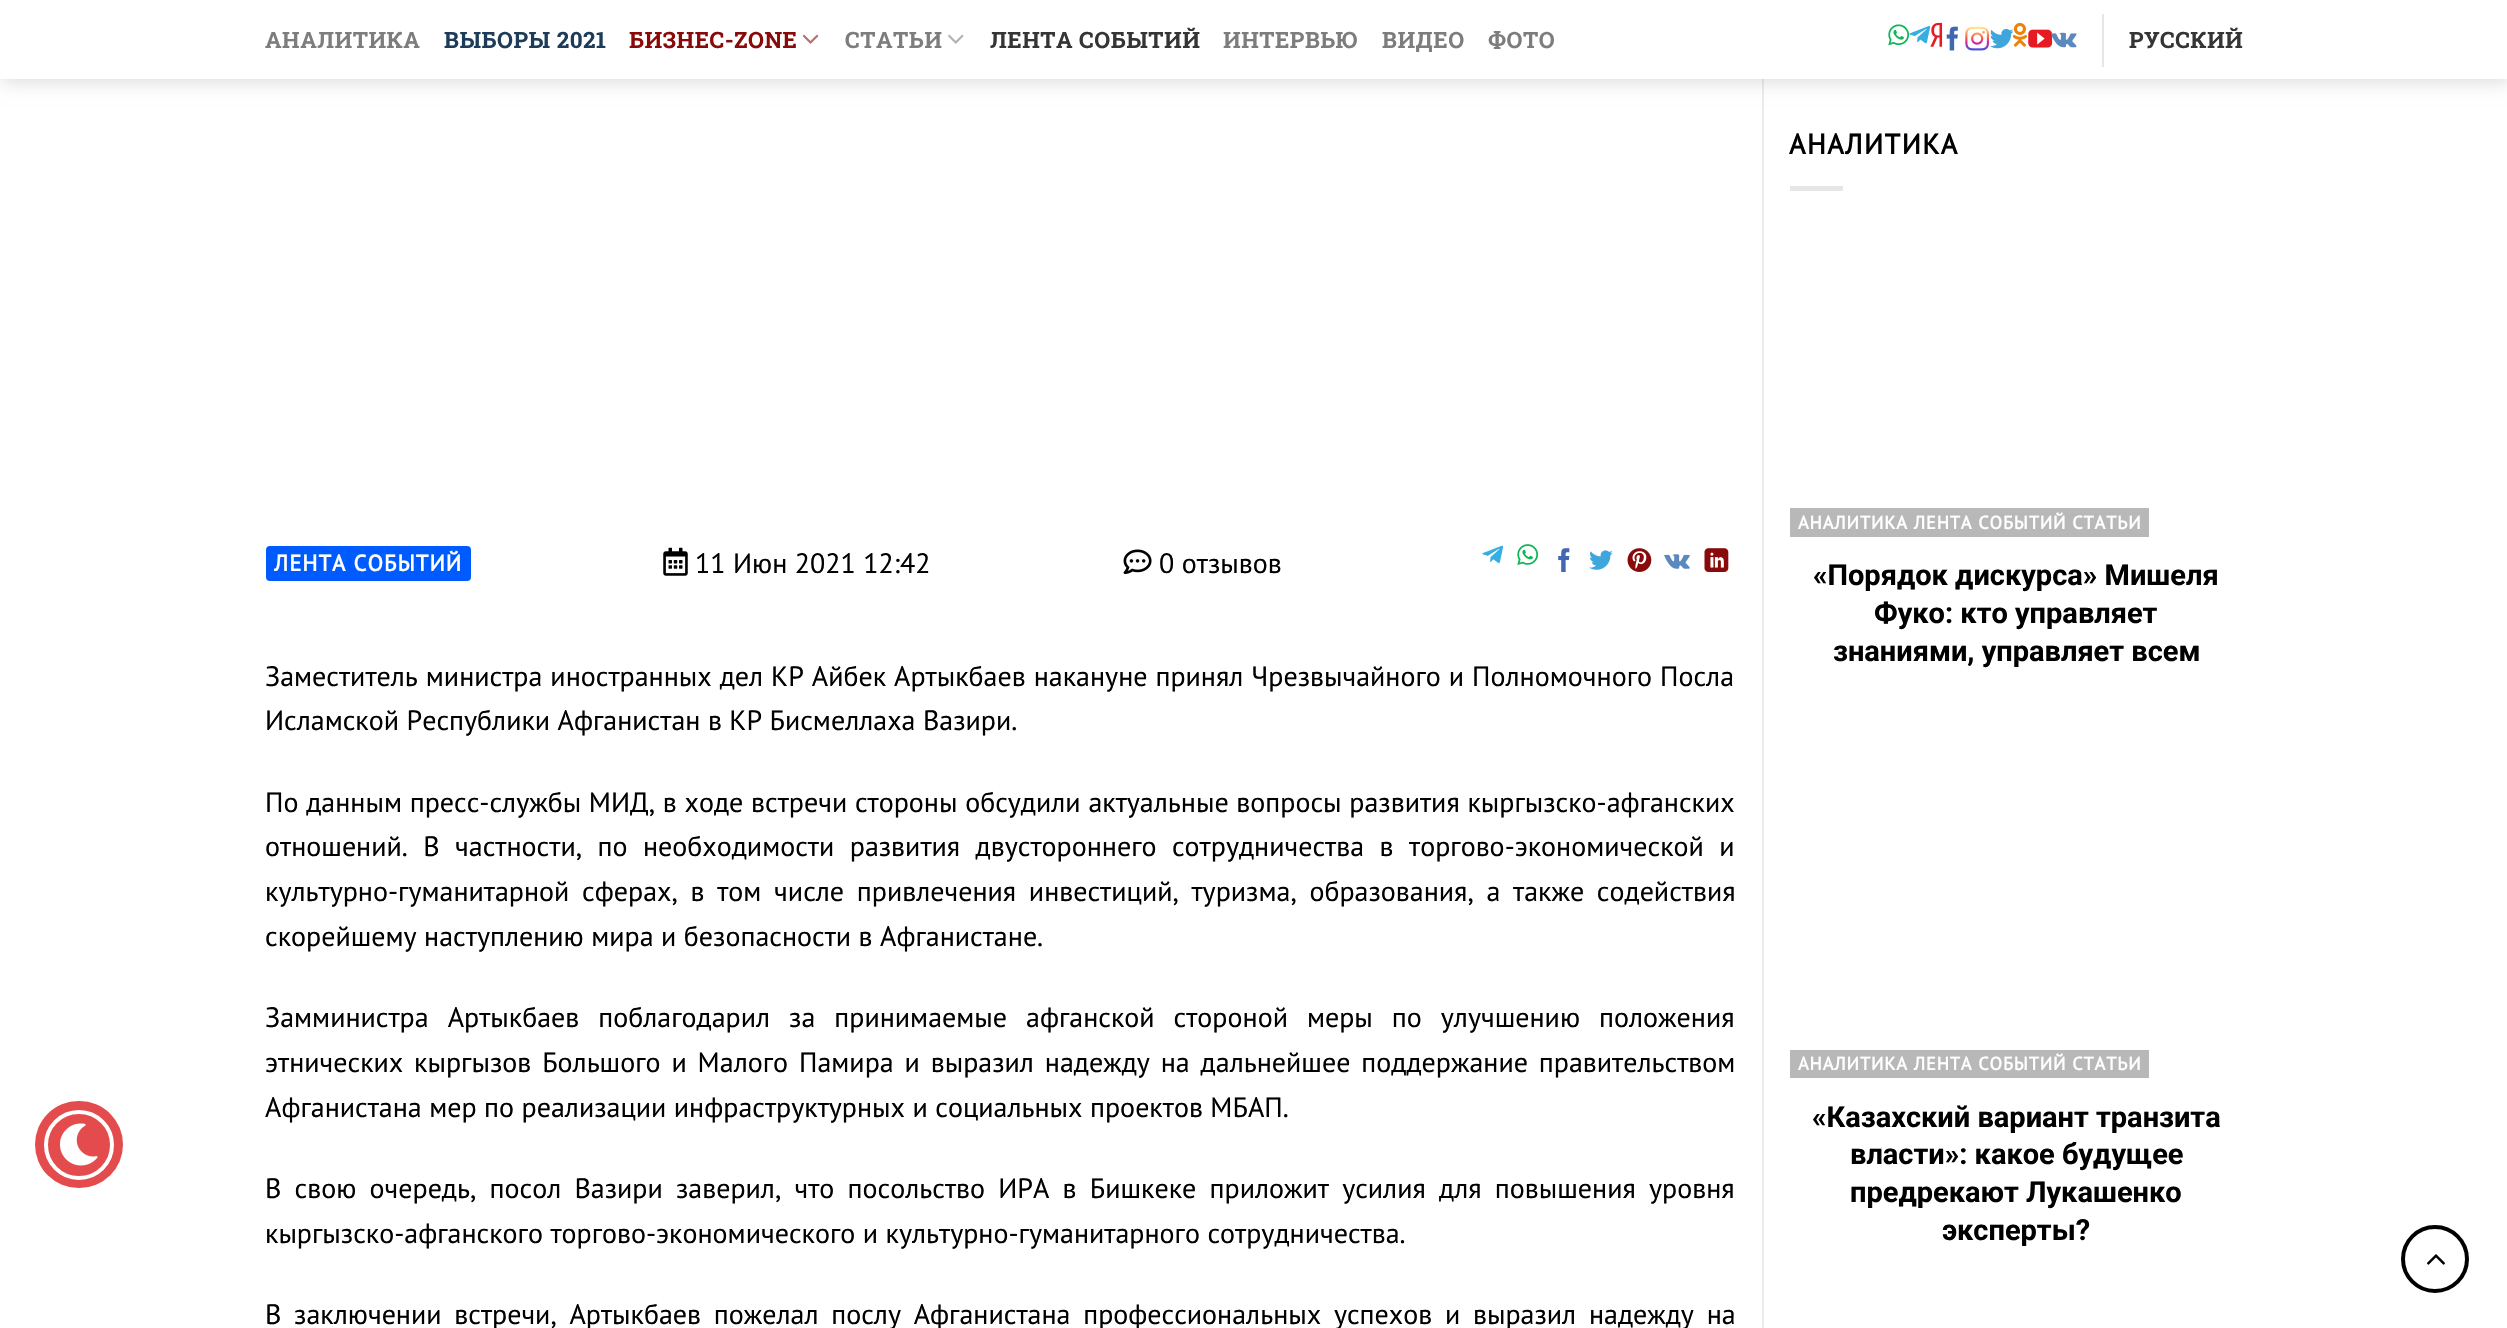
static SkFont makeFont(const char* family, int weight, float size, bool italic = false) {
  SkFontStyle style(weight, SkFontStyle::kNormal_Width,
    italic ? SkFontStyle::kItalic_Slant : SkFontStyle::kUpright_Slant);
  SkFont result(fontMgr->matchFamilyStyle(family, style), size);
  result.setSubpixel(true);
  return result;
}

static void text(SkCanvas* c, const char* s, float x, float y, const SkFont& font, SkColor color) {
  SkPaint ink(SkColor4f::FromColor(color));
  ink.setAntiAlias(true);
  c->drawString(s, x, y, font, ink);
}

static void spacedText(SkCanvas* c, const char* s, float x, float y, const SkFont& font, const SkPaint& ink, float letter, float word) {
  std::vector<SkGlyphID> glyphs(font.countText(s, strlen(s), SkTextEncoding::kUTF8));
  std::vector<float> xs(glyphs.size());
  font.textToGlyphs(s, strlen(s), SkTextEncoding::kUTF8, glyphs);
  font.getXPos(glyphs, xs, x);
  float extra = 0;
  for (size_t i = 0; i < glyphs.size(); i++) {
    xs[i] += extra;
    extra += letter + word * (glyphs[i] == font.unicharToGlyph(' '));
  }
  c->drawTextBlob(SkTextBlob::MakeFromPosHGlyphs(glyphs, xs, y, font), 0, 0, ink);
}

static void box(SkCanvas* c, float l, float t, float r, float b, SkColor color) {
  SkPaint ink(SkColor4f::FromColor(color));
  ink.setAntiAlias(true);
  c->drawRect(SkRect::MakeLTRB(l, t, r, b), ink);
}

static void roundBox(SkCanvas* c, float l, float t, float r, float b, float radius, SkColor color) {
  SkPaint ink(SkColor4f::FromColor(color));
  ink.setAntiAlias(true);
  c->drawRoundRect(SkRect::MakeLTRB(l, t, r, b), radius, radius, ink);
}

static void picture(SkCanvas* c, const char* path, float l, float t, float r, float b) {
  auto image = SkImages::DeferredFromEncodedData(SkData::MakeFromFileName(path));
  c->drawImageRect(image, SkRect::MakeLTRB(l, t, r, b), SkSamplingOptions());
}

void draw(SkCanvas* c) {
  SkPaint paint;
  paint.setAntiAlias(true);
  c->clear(0xffffffff);
  roundBox(c, 35, 1101, 123, 1188, 43.5f, 0xffe44b4d);
  picture(c, "img_01.png", 59, 1123, 98, 1166);
  paint.setStyle(SkPaint::kStroke_Style);
  paint.setStrokeWidth(4);
  paint.setColor(0xffffffff);
  c->drawCircle(79, 1145, 33, paint);
  box(c, 1762, 79, 1764, 1328, 0xffececec);
  paint.setStyle(SkPaint::kFill_Style);
  paint.setColor(0x26000000);
  paint.setMaskFilter(SkMaskFilter::MakeBlur(kNormal_SkBlurStyle, 9));
  c->drawRect(SkRect::MakeLTRB(2, 2, 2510, 81), paint);
  paint.setMaskFilter(nullptr);
  box(c, 0, 0, 2507, 79, 0xffffffff);
  SkFont face1 = makeFont("Roboto Slab", 700, 22.5f);
  paint.setColor(0xff7d7d7d);
  spacedText(c, "АНАЛИТИКА", 265, 48, face1, paint, 0.5f, 0);
  paint.setColor(0xff1d3c59);
  spacedText(c, "ВЫБОРЫ 2021", 444, 48, face1, paint, 0.5f, 0);
  paint.setColor(0xff890a0a);
  spacedText(c, "БИЗНЕС-ZONE", 629, 48, face1, paint, 0.5f, 0);
  picture(c, "img_02.png", 802, 34, 819, 44);
  paint.setColor(0xff7d7d7d);
  spacedText(c, "СТАТЬИ", 845, 48, face1, paint, 0.5f, 0);
  picture(c, "img_03.png", 948, 34, 964, 44);
  paint.setColor(0xff353535);
  spacedText(c, "ЛЕНТА СОБЫТИЙ", 990, 48, face1, paint, 0.5f, 0);
  paint.setColor(0xff7d7d7d);
  spacedText(c, "ИНТЕРВЬЮ", 1223, 48, face1, paint, 0.5f, 0);
  spacedText(c, "ВИДЕО", 1382, 48, face1, paint, 0.5f, 0);
  spacedText(c, "ФОТО", 1488, 48, face1, paint, 0.5f, 0);
  picture(c, "img_04.png", 1888, 24, 1910, 46);
  picture(c, "img_05.png", 1909, 25, 1931, 44);
  picture(c, "img_06.png", 1930, 22, 1943, 47);
  picture(c, "img_07.png", 1946, 26, 1958, 51);
  picture(c, "img_08.png", 1965, 26, 1990, 51);
  picture(c, "img_10.png", 2012, 22, 2028, 47);
  picture(c, "img_09.png", 1990, 28, 2014, 49);
  picture(c, "img_11.png", 2028, 29, 2053, 48);
  picture(c, "img_12.png", 2051, 32, 2077, 48);
  box(c, 2102, 14, 2104, 67, 0xffe6e6e6);
  paint.setColor(0xff353535);
  spacedText(c, "РУССКИЙ", 2129, 48, face1, paint, 0.5f, 0);
  roundBox(c, 266, 546, 471, 581, 4, 0xff005bff);
  SkFont face2 = makeFont("PT Sans", 700, 22.5f);
  paint.setColor(0xffffffff);
  spacedText(c, "ЛЕНТА СОБЫТИЙ", 274, 571, face2, paint, 1.1f, 0);
  picture(c, "img_13.png", 663, 547, 688, 576);
  SkFont face3 = makeFont("PT Sans", 400, 28);
  text(c, "11 Июн 2021 12:42", 695, 573, face3, 0xff000000);
  picture(c, "img_14.png", 1123, 549, 1152, 574);
  text(c, "0 отзывов", 1159, 573, face3, 0xff000000);
  picture(c, "img_15.png", 1482, 545, 1504, 564);
  picture(c, "img_16.png", 1517, 544, 1539, 565);
  picture(c, "img_17.png", 1558, 548, 1570, 572);
  picture(c, "img_18.png", 1589, 550, 1613, 570);
  picture(c, "img_19.png", 1627, 548, 1652, 572);
  picture(c, "img_20.png", 1664, 554, 1690, 569);
  picture(c, "img_21.png", 1704, 548, 1729, 572);
  paint.setColor(0xff000000);
  spacedText(c, "Заместитель министра иностранных дел КР Айбек Артыкбаев накануне принял Чрезвычайного и Полномочного Посла", 265, 686, face3, paint, 0, 0.5f);
  text(c, "Исламской Республики Афганистан в КР Бисмеллаха Вазири.", 265, 730, face3, 0xff000000);
  spacedText(c, "По данным пресс-службы МИД, в ходе встречи стороны обсудили актуальные вопросы развития кыргызско-афганских", 265, 812, face3, paint, 0, 0.25f);
  spacedText(c, "отношений. В частности, по необходимости развития двустороннего сотрудничества в торгово-экономической и", 265, 856, face3, paint, 0, 8);
  spacedText(c, "культурно-гуманитарной сферах, в том числе привлечения инвестиций, туризма, образования, а также содействия", 265, 901, face3, paint, 0, 5.25f);
  text(c, "скорейшему наступлению мира и безопасности в Афганистане.", 265, 946, face3, 0xff000000);
  spacedText(c, "Замминистра Артыкбаев поблагодарил за принимаемые афганской стороной меры по улучшению положения", 265, 1027, face3, paint, 0, 11.5f);
  spacedText(c, "этнических кыргызов Большого и Малого Памира и выразил надежду на дальнейшее поддержание правительством", 265, 1072, face3, paint, 0, 3.4f);
  text(c, "Афганистана мер по реализации инфраструктурных и социальных проектов МБАП.", 265, 1117, face3, 0xff000000);
  spacedText(c, "В свою очередь, посол Вазири заверил, что посольство ИРА в Бишкеке приложит усилия для повышения уровня", 265, 1198, face3, paint, 0, 5.75f);
  text(c, "кыргызско-афганского торгово-экономического и культурно-гуманитарного сотрудничества.", 265, 1243, face3, 0xff000000);
  spacedText(c, "В заключении встречи, Артыкбаев пожелал послу Афганистана профессиональных успехов и выразил надежду на", 265, 1324, face3, paint, 0, 5.25f);
  SkFont face4 = makeFont("PT Sans", 700, 28);
  spacedText(c, "АНАЛИТИКА", 1789, 154, face4, paint, 1.5f, 0);
  box(c, 1790, 186, 1843, 191, 0xffe6e6e6);
  box(c, 1790, 508, 2149, 537, 0xffb8b8b8);
  SkFont face5 = makeFont("PT Sans", 700, 18.25f);
  paint.setColor(0xffffffff);
  spacedText(c, "АНАЛИТИКА ЛЕНТА СОБЫТИЙ СТАТЬИ", 1798, 529, face5, paint, 0.9f, 0);
  SkFont face6 = makeFont("Roboto", 700, 29);
  text(c, "«Порядок дискурса» Мишеля", 1813, 585, face6, 0xff000000);
  text(c, "Фуко: кто управляет", 1874, 623, face6, 0xff000000);
  text(c, "знаниями, управляет всем", 1833, 661, face6, 0xff000000);
  box(c, 1790, 1050, 2149, 1078, 0xffb8b8b8);
  spacedText(c, "АНАЛИТИКА ЛЕНТА СОБЫТИЙ СТАТЬИ", 1798, 1070, face5, paint, 0.9f, 0);
  text(c, "«Казахский вариант транзита", 1812, 1127, face6, 0xff000000);
  text(c, "власти»: какое будущее", 1850, 1164, face6, 0xff000000);
  text(c, "предрекают Лукашенко", 1850, 1202, face6, 0xff000000);
  text(c, "эксперты?", 1942, 1240, face6, 0xff000000);
  paint.setStyle(SkPaint::kStroke_Style);
  paint.setColor(0xff000000);
  c->drawCircle(2435, 1259, 32, paint);
  picture(c, "img_22.png", 2426, 1254, 2445, 1265);
}
